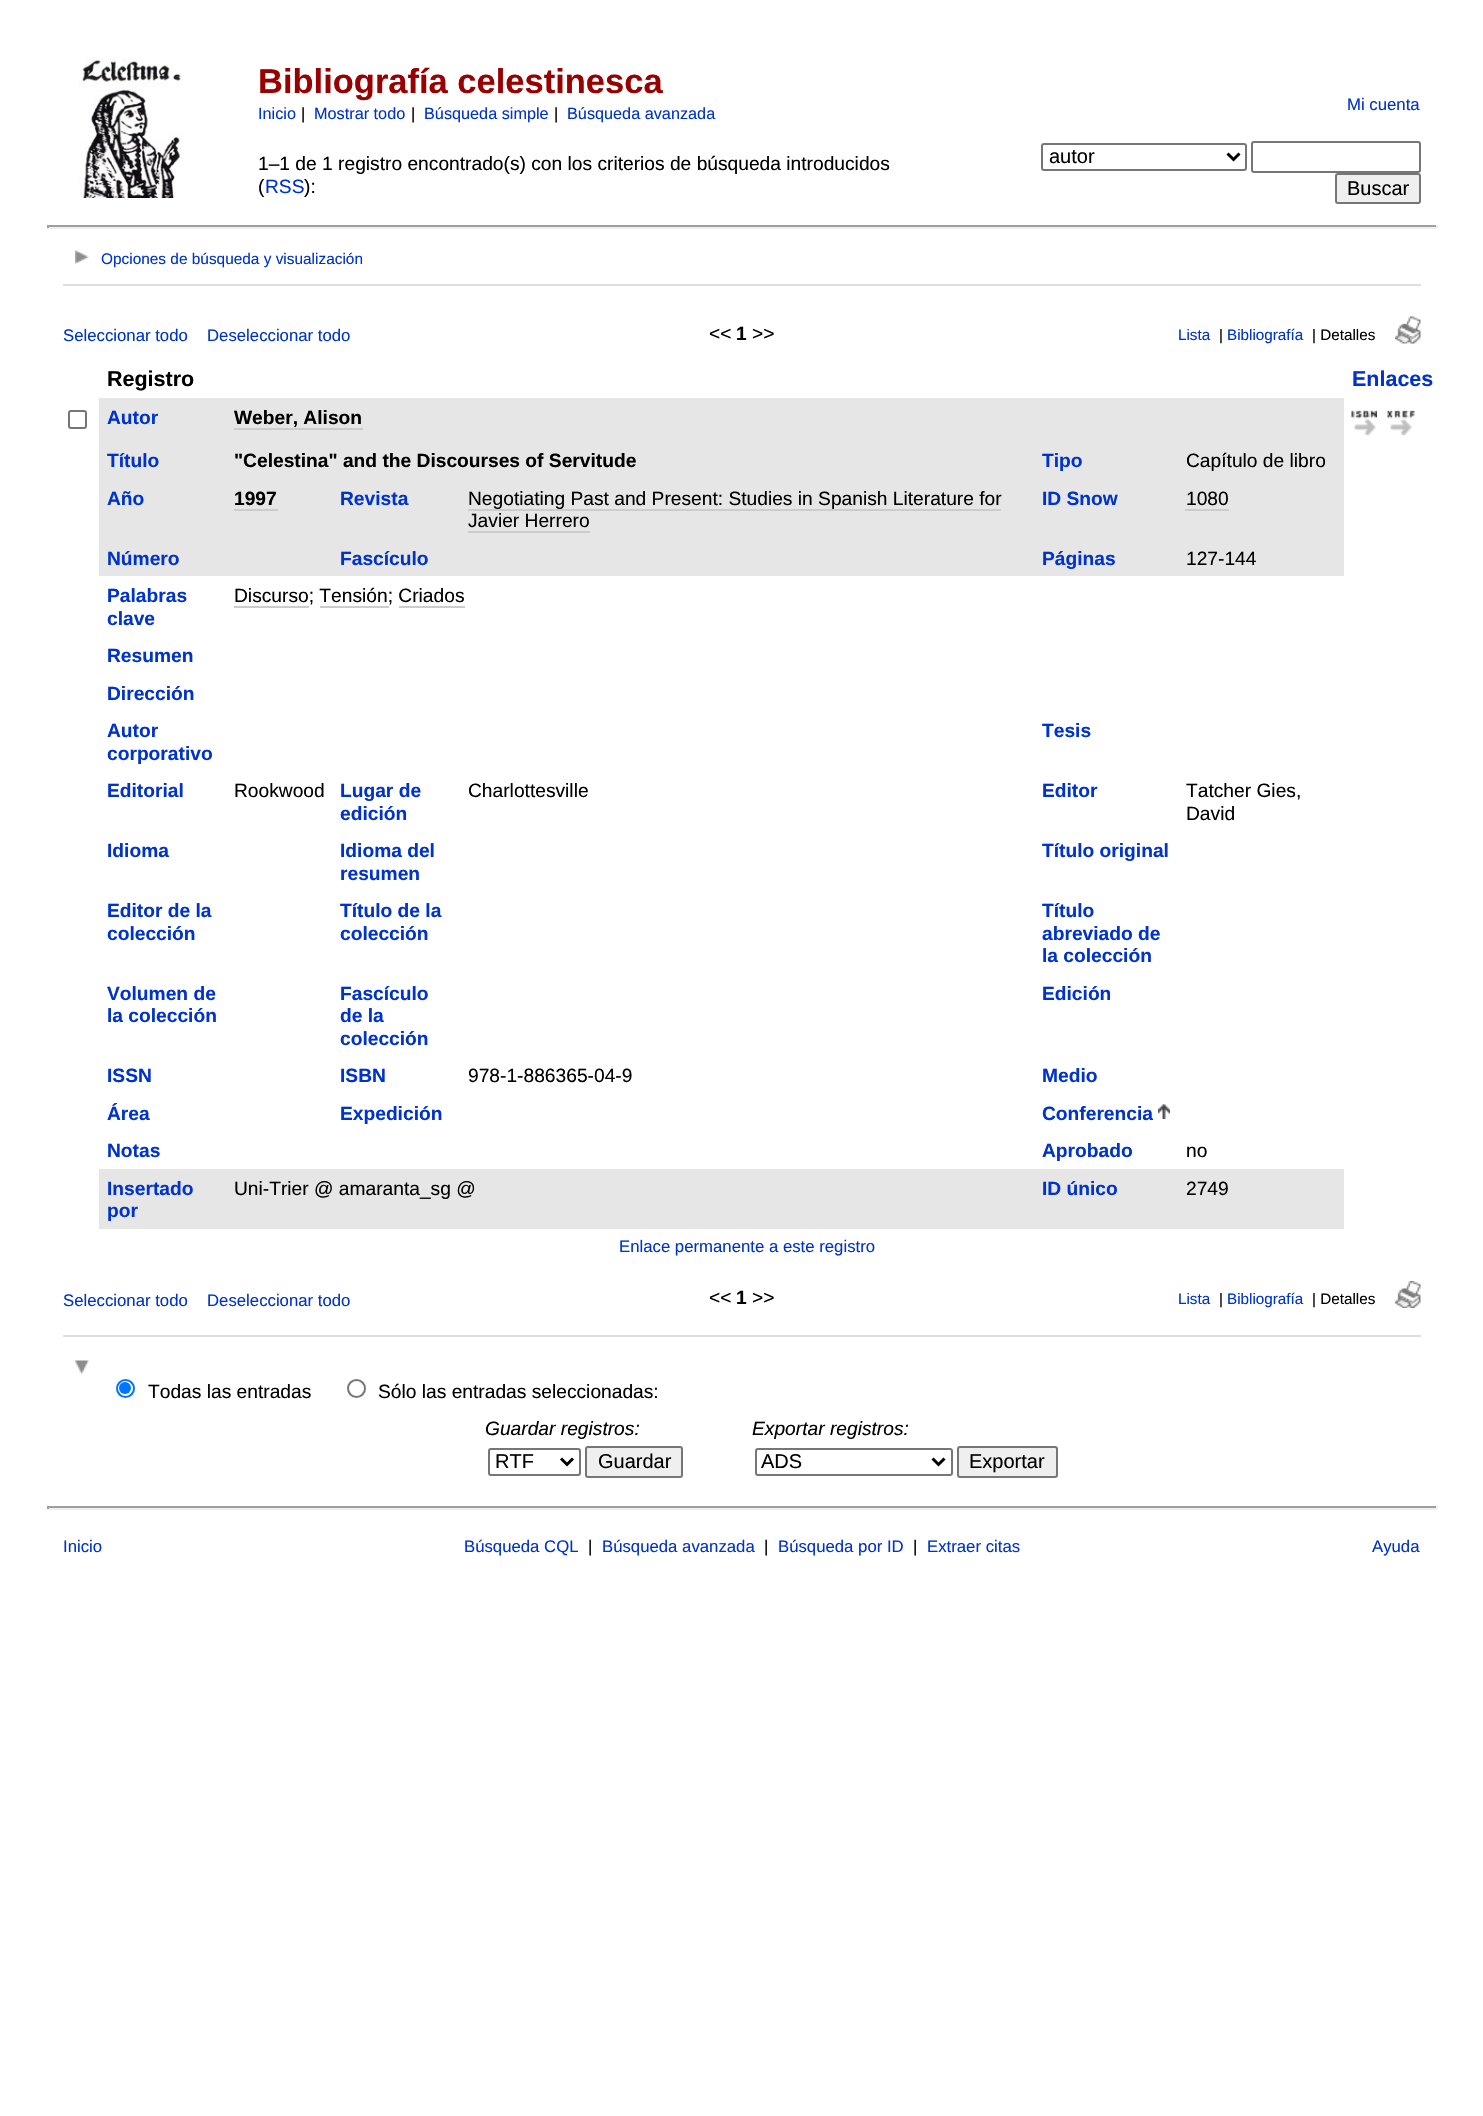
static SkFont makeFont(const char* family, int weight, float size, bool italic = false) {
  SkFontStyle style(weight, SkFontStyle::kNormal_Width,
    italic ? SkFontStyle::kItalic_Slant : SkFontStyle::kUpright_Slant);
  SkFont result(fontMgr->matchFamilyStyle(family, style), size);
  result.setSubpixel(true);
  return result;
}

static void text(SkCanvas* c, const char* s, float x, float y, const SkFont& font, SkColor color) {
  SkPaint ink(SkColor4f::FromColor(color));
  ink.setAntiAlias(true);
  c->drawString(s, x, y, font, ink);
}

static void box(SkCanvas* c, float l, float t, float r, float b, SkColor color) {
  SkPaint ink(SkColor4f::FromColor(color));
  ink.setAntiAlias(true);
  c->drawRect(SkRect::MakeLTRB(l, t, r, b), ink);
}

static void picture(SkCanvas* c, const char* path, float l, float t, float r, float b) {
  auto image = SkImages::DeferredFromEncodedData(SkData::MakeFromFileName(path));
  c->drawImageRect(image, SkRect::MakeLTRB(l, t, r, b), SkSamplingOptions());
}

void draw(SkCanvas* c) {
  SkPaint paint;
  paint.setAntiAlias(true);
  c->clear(0xffffffff);
  picture(c, "img_01.png", 78, 57, 183, 198);
  SkFont face1 = makeFont("Liberation Sans", 700, 34.5f);
  text(c, "Bibliografía celestinesca", 258, 93, face1, 0xff990000);
  SkFont face2 = makeFont("Liberation Sans", 400, 16.25f);
  text(c, "Inicio", 258, 119, face2, 0xff0033cc);
  text(c, "|", 301, 119, face2, 0xff000000);
  text(c, "Mostrar todo", 314, 119, face2, 0xff0033cc);
  text(c, "|", 411, 119, face2, 0xff000000);
  text(c, "Búsqueda simple", 424, 119, face2, 0xff0033cc);
  text(c, "|", 554, 119, face2, 0xff000000);
  text(c, "Búsqueda avanzada", 567, 119, face2, 0xff0033cc);
  SkFont face3 = makeFont("Liberation Sans", 400, 16.75f);
  text(c, "Mi cuenta", 1347, 110, face3, 0xff0033cc);
  paint.setStyle(SkPaint::kStroke_Style);
  paint.setStrokeWidth(2);
  paint.setColor(0xff767676);
  c->drawRoundRect(SkRect::MakeLTRB(1042, 144, 1246, 170), 2, 2, paint);
  paint.setStrokeWidth(3);
  paint.setColor(0xff000000);
  c->drawPath(SkPathBuilder().moveTo(1227.5f, 153.5f).lineTo(1233.5f, 159.5f).lineTo(1239.5f, 153.5f).detach(), paint);
  SkFont face4 = makeFont("Liberation Sans", 400, 20);
  text(c, "autor", 1049, 163, face4, 0xff000000);
  paint.setStrokeWidth(2);
  paint.setColor(0xff767676);
  c->drawRoundRect(SkRect::MakeLTRB(1252, 142, 1420, 172), 2, 2, paint);
  paint.setStyle(SkPaint::kFill_Style);
  paint.setColor(0xffefefef);
  c->drawRoundRect(SkRect::MakeLTRB(1336, 174, 1420, 203), 2, 2, paint);
  paint.setStyle(SkPaint::kStroke_Style);
  paint.setColor(0xff767676);
  c->drawRoundRect(SkRect::MakeLTRB(1336, 174, 1420, 203), 2, 2, paint);
  text(c, "Buscar", 1347, 195, face4, 0xff000000);
  SkFont face5 = makeFont("Liberation Sans", 400, 19.2f);
  text(c, "1–1 de 1 registro encontrado(s) con los criterios de búsqueda introducidos", 258, 170, face5, 0xff000000);
  text(c, "(", 258, 193, face5, 0xff000000);
  text(c, "RSS", 265, 193, face5, 0xff0033cc);
  text(c, "):", 304, 193, face5, 0xff000000);
  box(c, 47, 225, 1437, 227, 0xff9f9f9f);
  box(c, 1436, 225, 1438, 228, 0xffeeeeee);
  box(c, 47, 227, 1437, 229, 0xffeeeeee);
  box(c, 47, 225, 49, 228, 0xff9f9f9f);
  picture(c, "img_02.png", 75, 250, 89, 264);
  SkFont face6 = makeFont("Liberation Sans", 400, 15.4f);
  text(c, "Opciones de búsqueda y visualización", 101, 264, face6, 0xff0033cc);
  box(c, 63, 284, 1421, 286, 0xffdedede);
  text(c, "Seleccionar todo", 63, 341, face3, 0xff0033cc);
  text(c, "Deseleccionar todo", 207, 341, face3, 0xff0033cc);
  text(c, "<<", 709, 340, face5, 0xff000000);
  SkFont face7 = makeFont("Liberation Sans", 700, 19.2f);
  text(c, "1", 736, 340, face7, 0xff000000);
  text(c, ">>", 752, 340, face5, 0xff000000);
  SkFont face8 = makeFont("Liberation Sans", 400, 15.25f);
  text(c, "Lista", 1178, 340, face8, 0xff0033cc);
  text(c, "|", 1219, 340, face8, 0xff000000);
  text(c, "Bibliografía", 1227, 340, face8, 0xff0033cc);
  text(c, "| Detalles", 1312, 340, face8, 0xff000000);
  picture(c, "img_03.png", 1395, 316, 1421, 344);
  SkFont face9 = makeFont("Liberation Sans", 700, 21.5f);
  text(c, "Registro", 107, 386, face9, 0xff000000);
  text(c, "Enlaces", 1352, 386, face9, 0xff0033cc);
  c->drawRoundRect(SkRect::MakeLTRB(69, 411, 86, 428), 2, 2, paint);
  box(c, 99, 398, 1344, 441, 0xffe6e6e6);
  text(c, "Autor", 107, 424, face7, 0xff0033cc);
  text(c, "Weber, Alison", 234, 424, face7, 0xff000000);
  box(c, 234, 428, 363, 430, 0xffcccccc);
  picture(c, "img_04.png", 1351, 410, 1377, 435);
  picture(c, "img_05.png", 1387, 410, 1415, 435);
  box(c, 99, 441, 1344, 479, 0xffe6e6e6);
  text(c, "Título", 107, 467, face7, 0xff0033cc);
  text(c, "\"Celestina\" and the Discourses of Servitude", 234, 467, face7, 0xff000000);
  text(c, "Tipo", 1042, 467, face7, 0xff0033cc);
  text(c, "Capítulo de libro", 1186, 467, face5, 0xff000000);
  box(c, 99, 479, 1344, 539, 0xffe6e6e6);
  text(c, "Año", 107, 505, face7, 0xff0033cc);
  text(c, "1997", 234, 505, face7, 0xff000000);
  box(c, 234, 509, 278, 511, 0xffcccccc);
  text(c, "Revista", 340, 505, face7, 0xff0033cc);
  text(c, "Negotiating Past and Present: Studies in Spanish Literature for", 468, 505, face5, 0xff000000);
  box(c, 468, 509, 1001, 511, 0xffcccccc);
  text(c, "Javier Herrero", 468, 527, face5, 0xff000000);
  box(c, 468, 531, 590, 533, 0xffcccccc);
  text(c, "ID Snow", 1042, 505, face7, 0xff0033cc);
  text(c, "1080", 1186, 505, face5, 0xff000000);
  box(c, 1185, 509, 1229, 511, 0xffcccccc);
  box(c, 99, 539, 1344, 576, 0xffe6e6e6);
  text(c, "Número", 107, 565, face7, 0xff0033cc);
  text(c, "Fascículo", 340, 565, face7, 0xff0033cc);
  text(c, "Páginas", 1042, 565, face7, 0xff0033cc);
  text(c, "127-144", 1186, 565, face5, 0xff000000);
  text(c, "Palabras", 107, 602, face7, 0xff0033cc);
  text(c, "clave", 107, 625, face7, 0xff0033cc);
  text(c, "Discurso; Tensión; Criados", 234, 602, face5, 0xff000000);
  box(c, 234, 606, 309, 608, 0xffcccccc);
  box(c, 320, 606, 389, 608, 0xffcccccc);
  box(c, 399, 606, 465, 608, 0xffcccccc);
  text(c, "Resumen", 107, 662, face7, 0xff0033cc);
  text(c, "Dirección", 107, 700, face7, 0xff0033cc);
  text(c, "Autor", 107, 737, face7, 0xff0033cc);
  text(c, "corporativo", 107, 760, face7, 0xff0033cc);
  text(c, "Tesis", 1042, 737, face7, 0xff0033cc);
  text(c, "Editorial", 107, 797, face7, 0xff0033cc);
  text(c, "Rookwood", 234, 797, face5, 0xff000000);
  text(c, "Lugar de", 340, 797, face7, 0xff0033cc);
  text(c, "edición", 340, 820, face7, 0xff0033cc);
  text(c, "Charlottesville", 468, 797, face5, 0xff000000);
  text(c, "Editor", 1042, 797, face7, 0xff0033cc);
  text(c, "Tatcher Gies,", 1186, 797, face5, 0xff000000);
  text(c, "David", 1186, 820, face5, 0xff000000);
  text(c, "Idioma", 107, 857, face7, 0xff0033cc);
  text(c, "Idioma del", 340, 857, face7, 0xff0033cc);
  text(c, "resumen", 340, 880, face7, 0xff0033cc);
  text(c, "Título original", 1042, 857, face7, 0xff0033cc);
  text(c, "Editor de la", 107, 917, face7, 0xff0033cc);
  text(c, "colección", 107, 940, face7, 0xff0033cc);
  text(c, "Título de la", 340, 917, face7, 0xff0033cc);
  text(c, "colección", 340, 940, face7, 0xff0033cc);
  text(c, "Título", 1042, 917, face7, 0xff0033cc);
  text(c, "abreviado de", 1042, 940, face7, 0xff0033cc);
  text(c, "la colección", 1042, 962, face7, 0xff0033cc);
  text(c, "Volumen de", 107, 1000, face7, 0xff0033cc);
  text(c, "la colección", 107, 1022, face7, 0xff0033cc);
  text(c, "Fascículo", 340, 1000, face7, 0xff0033cc);
  text(c, "de la", 340, 1022, face7, 0xff0033cc);
  text(c, "colección", 340, 1045, face7, 0xff0033cc);
  text(c, "Edición", 1042, 1000, face7, 0xff0033cc);
  text(c, "ISSN", 107, 1082, face7, 0xff0033cc);
  text(c, "ISBN", 340, 1082, face7, 0xff0033cc);
  text(c, "978-1-886365-04-9", 468, 1082, face5, 0xff000000);
  text(c, "Medio", 1042, 1082, face7, 0xff0033cc);
  text(c, "Área", 107, 1120, face7, 0xff0033cc);
  text(c, "Expedición", 340, 1120, face7, 0xff0033cc);
  text(c, "Conferencia", 1042, 1120, face7, 0xff0033cc);
  picture(c, "img_06.png", 1158, 1104, 1170, 1119);
  text(c, "Notas", 107, 1157, face7, 0xff0033cc);
  text(c, "Aprobado", 1042, 1157, face7, 0xff0033cc);
  text(c, "no", 1186, 1157, face5, 0xff000000);
  box(c, 99, 1169, 1344, 1229, 0xffe6e6e6);
  text(c, "Insertado", 107, 1195, face7, 0xff0033cc);
  text(c, "por", 107, 1217, face7, 0xff0033cc);
  text(c, "Uni-Trier @ amaranta_sg @", 234, 1195, face5, 0xff000000);
  text(c, "ID único", 1042, 1195, face7, 0xff0033cc);
  text(c, "2749", 1186, 1195, face5, 0xff000000);
  text(c, "Enlace permanente a este registro", 619, 1252, face3, 0xff0033cc);
  text(c, "Seleccionar todo", 63, 1306, face3, 0xff0033cc);
  text(c, "Deseleccionar todo", 207, 1306, face3, 0xff0033cc);
  text(c, "<<", 709, 1304, face5, 0xff000000);
  text(c, "1", 736, 1304, face7, 0xff000000);
  text(c, ">>", 752, 1304, face5, 0xff000000);
  text(c, "Lista", 1178, 1304, face8, 0xff0033cc);
  text(c, "|", 1219, 1304, face8, 0xff000000);
  text(c, "Bibliografía", 1227, 1304, face8, 0xff0033cc);
  text(c, "| Detalles", 1312, 1304, face8, 0xff000000);
  picture(c, "img_07.png", 1395, 1281, 1421, 1308);
  box(c, 63, 1335, 1421, 1337, 0xffdedede);
  picture(c, "img_08.png", 75, 1360, 89, 1374);
  paint.setColor(0xff0075ff);
  c->drawCircle(125.5f, 1388.5f, 8.5f, paint);
  paint.setStyle(SkPaint::kFill_Style);
  c->drawCircle(125, 1388, 6, paint);
  text(c, "Todas las entradas", 148, 1398, face5, 0xff000000);
  paint.setStyle(SkPaint::kStroke_Style);
  paint.setColor(0xff767676);
  c->drawCircle(356.5f, 1388.5f, 8.5f, paint);
  text(c, "Sólo las entradas seleccionadas:", 378, 1398, face5, 0xff000000);
  SkFont face10 = makeFont("Liberation Sans", 400, 19.2f, true);
  text(c, "Guardar registros:", 485, 1435, face10, 0xff000000);
  c->drawRoundRect(SkRect::MakeLTRB(489, 1449, 580, 1475), 2, 2, paint);
  paint.setStrokeWidth(3);
  paint.setColor(0xff000000);
  c->drawPath(SkPathBuilder().moveTo(561, 1458.5f).lineTo(567, 1464.5f).lineTo(573, 1458.5f).detach(), paint);
  text(c, "RTF", 495, 1468, face4, 0xff000000);
  paint.setStyle(SkPaint::kFill_Style);
  paint.setColor(0xffefefef);
  c->drawRoundRect(SkRect::MakeLTRB(586, 1447, 682, 1477), 2, 2, paint);
  paint.setStyle(SkPaint::kStroke_Style);
  paint.setStrokeWidth(2);
  paint.setColor(0xff767676);
  c->drawRoundRect(SkRect::MakeLTRB(586, 1447, 682, 1477), 2, 2, paint);
  text(c, "Guardar", 598, 1468, face4, 0xff000000);
  text(c, "Exportar registros:", 752, 1435, face10, 0xff000000);
  c->drawRoundRect(SkRect::MakeLTRB(756, 1449, 952, 1475), 2, 2, paint);
  paint.setStrokeWidth(3);
  paint.setColor(0xff000000);
  c->drawPath(SkPathBuilder().moveTo(932.5f, 1458.5f).lineTo(938.5f, 1464.5f).lineTo(944.5f, 1458.5f).detach(), paint);
  text(c, "ADS", 761, 1468, face4, 0xff000000);
  paint.setStyle(SkPaint::kFill_Style);
  paint.setColor(0xffefefef);
  c->drawRoundRect(SkRect::MakeLTRB(958, 1447, 1057, 1477), 2, 2, paint);
  paint.setStyle(SkPaint::kStroke_Style);
  paint.setStrokeWidth(2);
  paint.setColor(0xff767676);
  c->drawRoundRect(SkRect::MakeLTRB(958, 1447, 1057, 1477), 2, 2, paint);
  text(c, "Exportar", 969, 1468, face4, 0xff000000);
  box(c, 47, 1506, 1437, 1508, 0xff9f9f9f);
  box(c, 1436, 1506, 1438, 1509, 0xffeeeeee);
  box(c, 47, 1508, 1437, 1510, 0xffeeeeee);
  box(c, 47, 1506, 49, 1509, 0xff9f9f9f);
  text(c, "Inicio", 63, 1552, face3, 0xff0033cc);
  text(c, "Búsqueda CQL", 464, 1552, face3, 0xff0033cc);
  text(c, "|", 588, 1552, face3, 0xff000000);
  text(c, "Búsqueda avanzada", 602, 1552, face3, 0xff0033cc);
  text(c, "|", 764, 1552, face3, 0xff000000);
  text(c, "Búsqueda por ID", 778, 1552, face3, 0xff0033cc);
  text(c, "|", 913, 1552, face3, 0xff000000);
  text(c, "Extraer citas", 927, 1552, face3, 0xff0033cc);
  text(c, "Ayuda", 1372, 1552, face3, 0xff0033cc);
}
